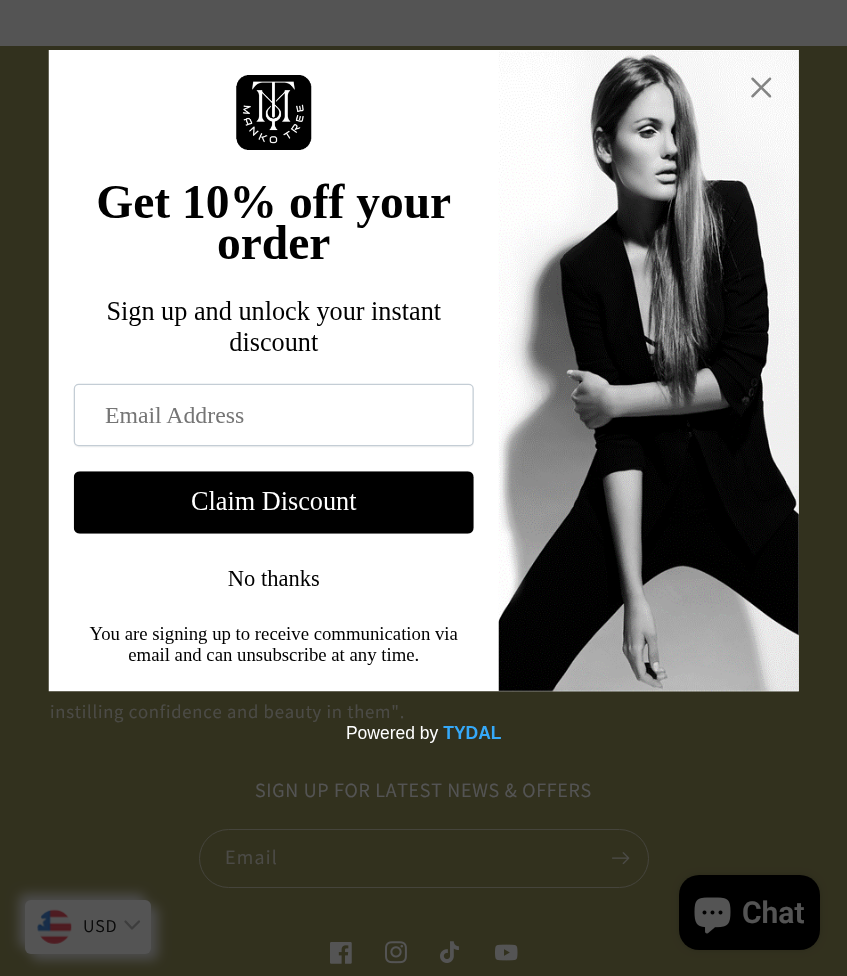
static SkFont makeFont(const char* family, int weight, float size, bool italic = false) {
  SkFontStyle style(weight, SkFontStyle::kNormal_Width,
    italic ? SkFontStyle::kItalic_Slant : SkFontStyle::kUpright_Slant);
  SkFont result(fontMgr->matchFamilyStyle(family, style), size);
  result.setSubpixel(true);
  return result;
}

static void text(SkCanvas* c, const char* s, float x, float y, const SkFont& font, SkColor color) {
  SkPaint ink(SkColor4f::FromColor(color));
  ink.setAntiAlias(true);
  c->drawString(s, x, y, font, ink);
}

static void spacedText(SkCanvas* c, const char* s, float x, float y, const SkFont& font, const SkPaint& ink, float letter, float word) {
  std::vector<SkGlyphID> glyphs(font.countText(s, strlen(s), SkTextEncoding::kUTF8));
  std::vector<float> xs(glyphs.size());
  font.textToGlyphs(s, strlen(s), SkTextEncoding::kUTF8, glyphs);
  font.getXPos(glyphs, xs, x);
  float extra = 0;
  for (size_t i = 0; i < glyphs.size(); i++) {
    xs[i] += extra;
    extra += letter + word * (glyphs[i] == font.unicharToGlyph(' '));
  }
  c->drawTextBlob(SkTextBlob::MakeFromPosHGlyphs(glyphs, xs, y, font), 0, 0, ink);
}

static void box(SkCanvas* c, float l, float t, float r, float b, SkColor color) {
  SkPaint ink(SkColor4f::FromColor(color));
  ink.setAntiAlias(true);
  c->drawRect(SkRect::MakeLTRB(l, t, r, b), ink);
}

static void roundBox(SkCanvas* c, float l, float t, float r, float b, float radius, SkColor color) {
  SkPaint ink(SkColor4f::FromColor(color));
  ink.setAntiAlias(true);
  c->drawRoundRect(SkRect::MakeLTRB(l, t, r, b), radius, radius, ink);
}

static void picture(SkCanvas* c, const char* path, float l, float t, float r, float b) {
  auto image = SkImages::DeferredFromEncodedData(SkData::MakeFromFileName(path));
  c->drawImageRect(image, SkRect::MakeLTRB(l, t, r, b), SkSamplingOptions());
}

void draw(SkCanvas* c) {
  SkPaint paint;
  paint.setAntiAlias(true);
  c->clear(0xffffffff);
  box(c, 0, 46, 847, 976, 0xff97935b);
  SkFont face1 = makeFont("Assistant", 400, 18.75f);
  paint.setColor(0xffe5e4d6);
  spacedText(c, "instilling confidence and beauty in them\".", 50, 718, face1, paint, 0.75f, 0);
  SkFont face2 = makeFont("Assistant", 400, 20);
  paint.setColor(0xffffffff);
  spacedText(c, "SIGN UP FOR LATEST NEWS & OFFERS", 255, 797, face2, paint, 0.75f, 0);
  paint.setStyle(SkPaint::kStroke_Style);
  paint.setStrokeWidth(1);
  paint.setColor(0xffd0ceb5);
  c->drawRoundRect(SkRect::MakeLTRB(199.5f, 829.5f, 648.5f, 887.5f), 29, 29, paint);
  paint.setStyle(SkPaint::kFill_Style);
  paint.setColor(0xffe5e4d6);
  spacedText(c, "Email", 225, 864, face2, paint, 1.25f, 0);
  picture(c, "img_02.png", 612, 852, 630, 865);
  picture(c, "img_03.png", 330, 942, 352, 964);
  picture(c, "img_04.png", 385, 941, 407, 964);
  picture(c, "img_05.png", 440, 941, 459, 963);
  picture(c, "img_06.png", 495, 944, 518, 961);
  paint.setColor(0x26000000);
  paint.setMaskFilter(SkMaskFilter::MakeBlur(kNormal_SkBlurStyle, 3));
  c->drawRoundRect(SkRect::MakeLTRB(679, 875, 820, 950), 20, 20, paint);
  paint.setMaskFilter(nullptr);
  roundBox(c, 679, 875, 820, 950, 20, 0xff000000);
  picture(c, "img_07.png", 694, 897, 731, 934);
  SkFont face3 = makeFont("Roboto", 600, 30);
  text(c, "Chat", 742, 923, face3, 0xffffffff);
  paint.setColor(0xffe8e8e8);
  paint.setMaskFilter(SkMaskFilter::MakeBlur(kNormal_SkBlurStyle, 6));
  c->drawRoundRect(SkRect::MakeLTRB(19, 894, 145, 948), 6, 6, paint);
  paint.setMaskFilter(nullptr);
  paint.setMaskFilter(SkMaskFilter::MakeBlur(kNormal_SkBlurStyle, 6));
  c->drawRoundRect(SkRect::MakeLTRB(31, 906, 158, 960), 6, 6, paint);
  paint.setMaskFilter(nullptr);
  roundBox(c, 25, 900, 151, 954, 6, 0xffffffff);
  picture(c, "img_08.png", 37, 909, 72, 944);
  SkFont face4 = makeFont("Assistant", 400, 18);
  paint.setColor(0xff1e1e1e);
  spacedText(c, "USD", 83, 932, face4, paint, 0.75f, 0);
  paint.setStyle(SkPaint::kStroke_Style);
  paint.setStrokeWidth(2.3f);
  paint.setStrokeCap(SkPaint::kRound_Cap);
  paint.setStrokeJoin(SkPaint::kRound_Join);
  paint.setColor(0xffb7b7b7);
  c->drawPath(SkPathBuilder().moveTo(125.5f, 921.5f).lineTo(132, 928.5f).lineTo(139, 921.5f).detach(), paint);
  picture(c, "img_01.png", 0, 0, 847, 976);
}
